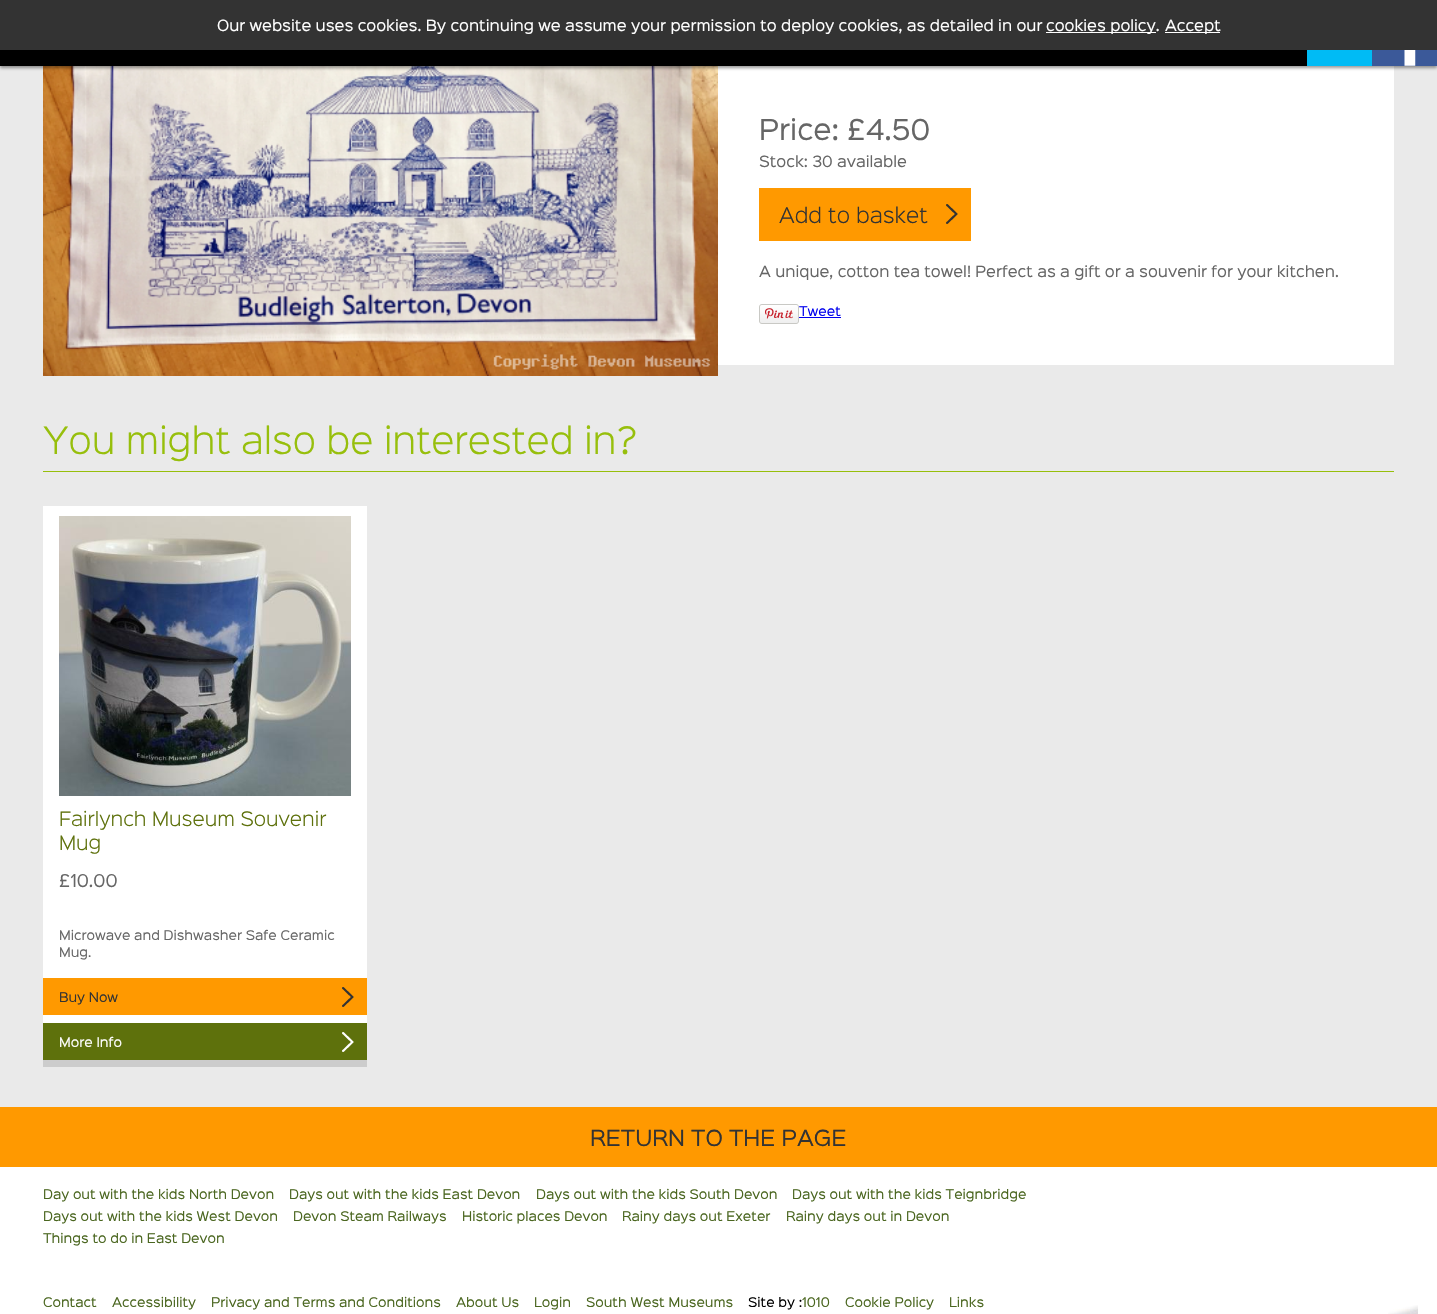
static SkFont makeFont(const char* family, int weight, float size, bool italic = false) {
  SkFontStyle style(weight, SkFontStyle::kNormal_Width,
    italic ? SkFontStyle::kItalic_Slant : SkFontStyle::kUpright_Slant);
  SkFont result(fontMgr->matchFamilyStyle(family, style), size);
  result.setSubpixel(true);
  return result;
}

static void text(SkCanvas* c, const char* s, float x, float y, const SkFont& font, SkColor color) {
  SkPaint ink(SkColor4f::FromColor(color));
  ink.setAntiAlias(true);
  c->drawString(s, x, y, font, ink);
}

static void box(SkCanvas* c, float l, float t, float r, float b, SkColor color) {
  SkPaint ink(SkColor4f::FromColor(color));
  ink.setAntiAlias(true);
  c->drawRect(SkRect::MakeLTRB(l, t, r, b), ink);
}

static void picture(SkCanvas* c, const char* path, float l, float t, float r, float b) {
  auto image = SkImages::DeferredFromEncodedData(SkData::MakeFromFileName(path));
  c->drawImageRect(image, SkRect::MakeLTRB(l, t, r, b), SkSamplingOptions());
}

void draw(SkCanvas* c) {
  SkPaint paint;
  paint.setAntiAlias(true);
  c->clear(0xffffffff);
  box(c, 0, 66, 1437, 1107, 0xffeaeaea);
  picture(c, "img_02.png", 43, 66, 718, 376);
  box(c, 718, 66, 1394, 365, 0xffffffff);
  paint.setColor(0x66000000);
  paint.setMaskFilter(SkMaskFilter::MakeBlur(kNormal_SkBlurStyle, 1.5f));
  c->drawRect(SkRect::MakeLTRB(0, 2, 1437, 68), paint);
  paint.setMaskFilter(nullptr);
  box(c, 0, 0, 1437, 50, 0xff333333);
  SkFont face1 = makeFont("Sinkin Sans", 400, 14);
  text(c, "Our website uses cookies. By continuing we assume your permission to deploy cookies, as detailed in our", 217, 31, face1, 0xffffffff);
  box(c, 1046, 32, 1156, 33, 0xffffffff);
  text(c, "cookies policy.", 1046, 31, face1, 0xffffffff);
  box(c, 1165, 32, 1220, 33, 0xffffffff);
  text(c, "Accept", 1165, 31, face1, 0xffffffff);
  box(c, 0, 50, 1307, 66, 0xff000000);
  box(c, 1307, 50, 1372, 66, 0xff00bbf5);
  box(c, 1372, 50, 1437, 66, 0xff3b5999);
  picture(c, "img_01.png", 1404, 50, 1416, 66);
  SkFont face2 = makeFont("Sinkin Sans", 400, 26);
  text(c, "Price: £4.50", 759, 140, face2, 0xff666666);
  text(c, "Stock: 30 available", 759, 167, face1, 0xff666666);
  box(c, 759, 188, 971, 241, 0xffff9900);
  picture(c, "img_03.png", 946, 204, 958, 224);
  SkFont face3 = makeFont("Sinkin Sans", 300, 19.5f);
  text(c, "Add to basket", 779, 223, face3, 0xff333333);
  text(c, "A unique, cotton tea towel! Perfect as a gift or a souvenir for your kitchen.", 759, 277, face1, 0xff666666);
  picture(c, "img_04.png", 759, 304, 799, 324);
  SkFont face4 = makeFont("Sinkin Sans", 400, 12);
  text(c, "Tweet", 799, 316, face4, 0xff0000ee);
  box(c, 799, 317, 841, 318, 0xff0000ee);
  box(c, 43, 471, 1394, 472, 0xff97bf0c);
  SkFont face5 = makeFont("Sinkin Sans", 300, 34);
  text(c, "You might also be interested in?", 43, 454, face5, 0xff97bf0c);
  box(c, 43, 506, 367, 1023, 0xffffffff);
  box(c, 43, 1060, 367, 1067, 0xffcccccc);
  picture(c, "img_05.png", 59, 516, 351, 796);
  SkFont face6 = makeFont("Sinkin Sans", 300, 18);
  text(c, "Fairlynch Museum Souvenir", 59, 826, face6, 0xff5e710c);
  text(c, "Mug", 59, 850, face6, 0xff5e710c);
  SkFont face7 = makeFont("Sinkin Sans", 400, 16);
  text(c, "£10.00", 59, 887, face7, 0xff666666);
  text(c, "Microwave and Dishwasher Safe Ceramic", 59, 940, face4, 0xff666666);
  text(c, "Mug.", 59, 957, face4, 0xff666666);
  box(c, 43, 978, 367, 1015, 0xffff9900);
  picture(c, "img_03.png", 342, 987, 354, 1007);
  text(c, "Buy Now", 59, 1002, face4, 0xff333333);
  box(c, 43, 1023, 367, 1060, 0xff5e710c);
  picture(c, "img_06.png", 342, 1032, 354, 1052);
  text(c, "More Info", 59, 1047, face4, 0xffffffff);
  box(c, 0, 1107, 1437, 1167, 0xffff9900);
  SkFont face8 = makeFont("Sinkin Sans", 400, 20);
  text(c, "RETURN TO THE PAGE", 590, 1146, face8, 0xff333333);
  picture(c, "img_07.png", 1388, 1305, 1418, 1314);
  text(c, "Day out with the kids North Devon", 43, 1199, face4, 0xff4a661f);
  text(c, "Days out with the kids East Devon", 289, 1199, face4, 0xff4a661f);
  text(c, "Days out with the kids South Devon", 536, 1199, face4, 0xff4a661f);
  text(c, "Days out with the kids Teignbridge", 792, 1199, face4, 0xff4a661f);
  text(c, "Days out with the kids West Devon", 43, 1221, face4, 0xff4a661f);
  text(c, "Devon Steam Railways", 293, 1221, face4, 0xff4a661f);
  text(c, "Historic places Devon", 462, 1221, face4, 0xff4a661f);
  text(c, "Rainy days out Exeter", 622, 1221, face4, 0xff4a661f);
  text(c, "Rainy days out in Devon", 786, 1221, face4, 0xff4a661f);
  text(c, "Things to do in East Devon", 43, 1243, face4, 0xff4a661f);
  text(c, "Contact", 43, 1307, face4, 0xff4a661f);
  text(c, "Accessibility", 112, 1307, face4, 0xff4a661f);
  text(c, "Privacy and Terms and Conditions", 211, 1307, face4, 0xff4a661f);
  text(c, "About Us", 456, 1307, face4, 0xff4a661f);
  text(c, "Login", 534, 1307, face4, 0xff4a661f);
  text(c, "South West Museums", 586, 1307, face4, 0xff4a661f);
  text(c, "Site by :", 748, 1307, face4, 0xff000000);
  text(c, "1010", 802, 1307, face4, 0xff4a661f);
  text(c, "Cookie Policy", 845, 1307, face4, 0xff4a661f);
  text(c, "Links", 949, 1307, face4, 0xff4a661f);
}
